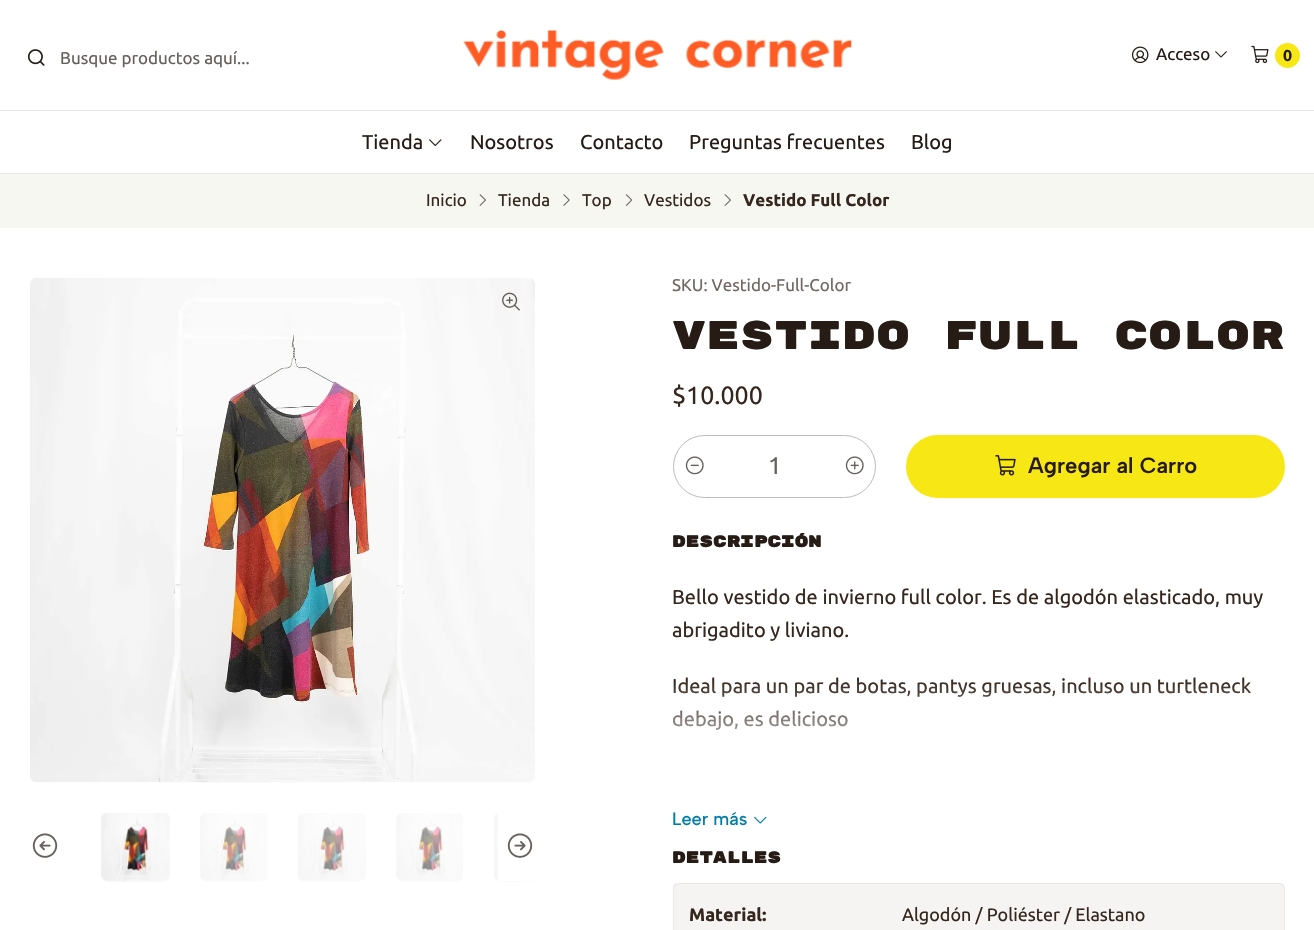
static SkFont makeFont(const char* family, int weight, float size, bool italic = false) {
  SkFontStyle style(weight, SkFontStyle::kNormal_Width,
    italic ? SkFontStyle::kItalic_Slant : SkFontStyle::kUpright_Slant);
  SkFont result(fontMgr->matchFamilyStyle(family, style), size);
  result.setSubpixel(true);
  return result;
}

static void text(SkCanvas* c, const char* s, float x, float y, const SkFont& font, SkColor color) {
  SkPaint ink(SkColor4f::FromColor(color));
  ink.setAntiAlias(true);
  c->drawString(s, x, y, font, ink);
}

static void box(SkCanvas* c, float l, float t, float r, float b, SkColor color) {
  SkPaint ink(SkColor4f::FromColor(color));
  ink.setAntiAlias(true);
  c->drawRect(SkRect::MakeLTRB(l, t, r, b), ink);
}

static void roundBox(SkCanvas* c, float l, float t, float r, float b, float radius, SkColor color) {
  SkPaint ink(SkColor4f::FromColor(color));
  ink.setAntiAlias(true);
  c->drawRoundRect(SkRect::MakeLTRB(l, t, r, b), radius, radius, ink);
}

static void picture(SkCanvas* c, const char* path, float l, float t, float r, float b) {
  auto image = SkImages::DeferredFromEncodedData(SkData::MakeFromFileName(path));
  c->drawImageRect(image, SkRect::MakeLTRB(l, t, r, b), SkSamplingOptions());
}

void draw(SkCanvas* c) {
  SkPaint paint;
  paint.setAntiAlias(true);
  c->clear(0xffffffff);
  box(c, 0, 173, 1314, 174, 0xffe9e8e8);
  picture(c, "img_01.png", 27, 49, 45, 66);
  SkFont face1 = makeFont("Ubuntu", 400, 17);
  text(c, "Busque productos aquí...", 60, 64, face1, 0xff67605b);
  picture(c, "img_02.png", 463, 30, 852, 80);
  picture(c, "img_03.png", 1131, 46, 1149, 64);
  text(c, "Acceso", 1156, 60, face1, 0xff261c15);
  picture(c, "img_04.png", 1215, 51, 1227, 58);
  picture(c, "img_05.png", 1251, 45, 1269, 64);
  paint.setColor(0xfff7e715);
  c->drawCircle(1287.5f, 55.5f, 12.5f, paint);
  SkFont face2 = makeFont("Ubuntu", 700, 16);
  text(c, "0", 1283, 61, face2, 0xff261c15);
  box(c, 0, 110, 1314, 111, 0xffe9e8e8);
  SkFont face3 = makeFont("Ubuntu", 400, 20);
  text(c, "Tienda", 362, 149, face3, 0xff261c15);
  picture(c, "img_06.png", 429, 139, 442, 146);
  text(c, "Nosotros", 470, 149, face3, 0xff261c15);
  text(c, "Contacto", 580, 149, face3, 0xff261c15);
  text(c, "Preguntas frecuentes", 689, 149, face3, 0xff261c15);
  text(c, "Blog", 911, 149, face3, 0xff261c15);
  box(c, 0, 174, 1314, 228, 0xfff7f7f2);
  text(c, "Inicio", 426, 206, face1, 0xff35271d);
  picture(c, "img_07.png", 479, 194, 486, 206);
  text(c, "Tienda", 498, 206, face1, 0xff35271d);
  picture(c, "img_08.png", 563, 194, 570, 206);
  text(c, "Top", 582, 206, face1, 0xff35271d);
  picture(c, "img_09.png", 625, 194, 633, 206);
  text(c, "Vestidos", 644, 206, face1, 0xff35271d);
  picture(c, "img_07.png", 724, 194, 731, 206);
  SkFont face4 = makeFont("Ubuntu", 700, 17);
  text(c, "Vestido Full Color", 743, 206, face4, 0xff35271d);
  picture(c, "img_10.png", 30, 278, 535, 783);
  picture(c, "img_11.png", 502, 292, 520, 311);
  picture(c, "img_12.png", 101, 813, 170, 882);
  picture(c, "img_13.png", 200, 813, 267, 882);
  picture(c, "img_14.png", 297, 813, 366, 882);
  picture(c, "img_15.png", 396, 813, 463, 882);
  picture(c, "img_16.png", 494, 813, 535, 882);
  picture(c, "img_17.png", 32, 833, 58, 858);
  box(c, 498, 813, 535, 881, 0xffffffff);
  picture(c, "img_18.png", 507, 833, 533, 858);
  text(c, "SKU: Vestido-Full-Color", 672, 291, face1, 0xff726861);
  SkFont face5 = makeFont("Rubik Mono One", 400, 40);
  text(c, "Vestido Full Color", 672, 349, face5, 0xff261c15);
  SkFont face6 = makeFont("Ubuntu", 400, 25);
  text(c, "$10.000", 672, 404, face6, 0xff35271d);
  paint.setStyle(SkPaint::kStroke_Style);
  paint.setStrokeWidth(1);
  paint.setColor(0xffbebbb9);
  c->drawRoundRect(SkRect::MakeLTRB(673.5f, 435.5f, 875.5f, 497.5f), 31, 31, paint);
  picture(c, "img_19.png", 685, 456, 704, 475);
  SkFont face7 = makeFont("Ubuntu", 400, 24);
  text(c, "1", 768, 474, face7, 0xff67605b);
  picture(c, "img_20.png", 845, 456, 864, 475);
  roundBox(c, 906, 435, 1285, 498, 31.5f, 0xfff7e715);
  picture(c, "img_21.png", 995, 455, 1016, 476);
  SkFont face8 = makeFont("Albert Sans", 600, 22);
  text(c, "Agregar al Carro", 1028, 473, face8, 0xff261c15);
  SkFont face9 = makeFont("Rubik Mono One", 700, 16);
  text(c, "DESCRIPCIÓN", 672, 547, face9, 0xff261c15);
  text(c, "Bello vestido de invierno full color. Es de algodón elasticado, muy", 672, 604, face3, 0xff35271d);
  text(c, "abrigadito y liviano.", 672, 637, face3, 0xff35271d);
  text(c, "Ideal para un par de botas, pantys gruesas, incluso un turtleneck", 672, 693, face3, 0xff35271d);
  text(c, "debajo, es delicioso", 672, 726, face3, 0xff35271d);
  paint.setStyle(SkPaint::kFill_Style);
  {
    const SkColor colors[] = {0x00ffffff, 0xffffffff};
    const float stops[] = {0, 1};
    const SkPoint ends[] = {{979, 680}, {979, 780}};
    paint.setShader(SkGradientShader::MakeLinear(ends, colors, stops, 2, SkTileMode::kClamp));
    paint.setAlpha(255);
  }
  c->drawRect(SkRect::MakeLTRB(673, 682, 1251, 730), paint);
  SkFont face10 = makeFont("Albert Sans", 500, 18);
  text(c, "Leer más", 672, 825, face10, 0xff007ea7);
  picture(c, "img_22.png", 754, 816, 767, 824);
  text(c, "DETALLES", 672, 863, face9, 0xff261c15);
  paint.setStyle(SkPaint::kStroke_Style);
  paint.setShader(nullptr);
  paint.setColor(0xffe9e8e8);
  c->drawRoundRect(SkRect::MakeLTRB(673.5f, 883.5f, 1284.5f, 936.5f), 5.5f, 5.5f, paint);
  box(c, 674, 884, 1284, 930, 0x0d35271d);
  SkFont face11 = makeFont("Ubuntu", 700, 18);
  text(c, "Material:", 689, 921, face11, 0xff35271d);
  SkFont face12 = makeFont("Ubuntu", 400, 18);
  text(c, "Algodón / Poliéster / Elastano", 902, 921, face12, 0xff35271d);
}
